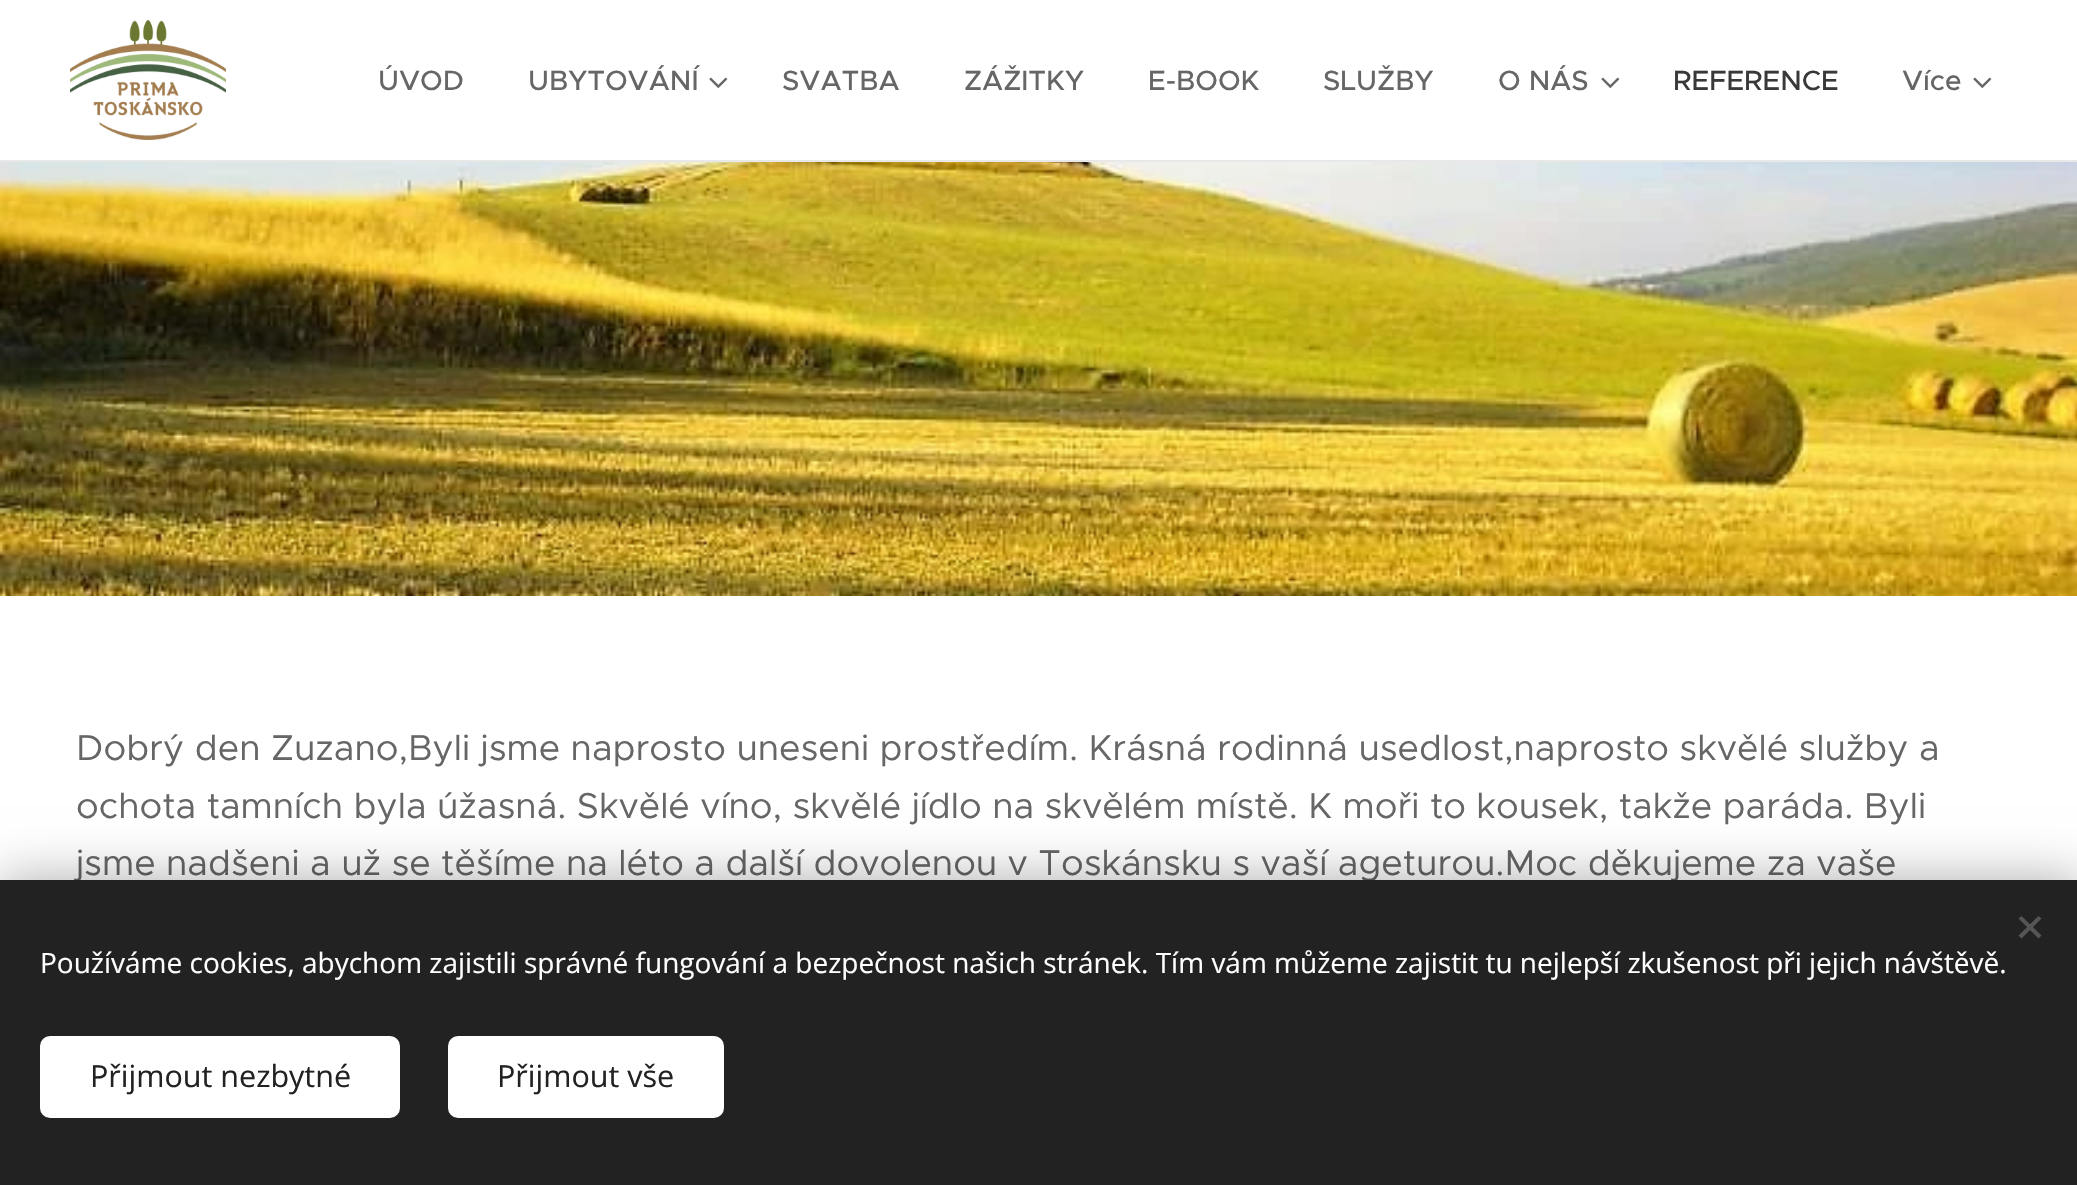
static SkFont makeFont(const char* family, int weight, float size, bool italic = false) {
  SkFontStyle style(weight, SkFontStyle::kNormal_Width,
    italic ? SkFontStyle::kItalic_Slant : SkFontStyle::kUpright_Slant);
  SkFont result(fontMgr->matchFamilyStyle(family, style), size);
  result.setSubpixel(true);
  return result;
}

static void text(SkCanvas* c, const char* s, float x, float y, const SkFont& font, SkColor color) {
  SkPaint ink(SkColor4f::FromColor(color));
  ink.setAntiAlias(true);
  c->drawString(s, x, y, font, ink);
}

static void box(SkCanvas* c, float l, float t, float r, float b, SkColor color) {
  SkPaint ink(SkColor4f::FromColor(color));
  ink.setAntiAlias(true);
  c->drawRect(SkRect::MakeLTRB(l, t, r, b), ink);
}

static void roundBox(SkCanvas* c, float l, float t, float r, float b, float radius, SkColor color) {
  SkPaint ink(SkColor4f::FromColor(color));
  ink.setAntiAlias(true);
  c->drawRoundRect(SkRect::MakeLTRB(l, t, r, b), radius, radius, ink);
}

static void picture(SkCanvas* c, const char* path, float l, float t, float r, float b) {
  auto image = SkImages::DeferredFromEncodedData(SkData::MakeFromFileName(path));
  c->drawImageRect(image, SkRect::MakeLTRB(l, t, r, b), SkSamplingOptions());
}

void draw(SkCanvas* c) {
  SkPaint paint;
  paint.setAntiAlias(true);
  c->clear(0xffffffff);
  box(c, 0, 160, 2077, 162, 0xffe8e8e8);
  picture(c, "img_01.png", 70, 20, 226, 140);
  SkFont face1 = makeFont("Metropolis", 500, 28);
  text(c, "ÚVOD", 378, 90, face1, 0xff666666);
  text(c, "UBYTOVÁNÍ", 528, 90, face1, 0xff666666);
  picture(c, "img_02.png", 709, 77, 728, 88);
  text(c, "SVATBA", 782, 90, face1, 0xff666666);
  text(c, "ZÁŽITKY", 964, 90, face1, 0xff666666);
  text(c, "E-BOOK", 1148, 90, face1, 0xff666666);
  text(c, "SLUŽBY", 1323, 90, face1, 0xff666666);
  text(c, "O NÁS", 1498, 90, face1, 0xff666666);
  picture(c, "img_02.png", 1601, 77, 1620, 88);
  text(c, "REFERENCE", 1673, 90, face1, 0xff393939);
  text(c, "Více", 1902, 90, face1, 0xff666666);
  picture(c, "img_02.png", 1973, 77, 1992, 88);
  picture(c, "img_03.png", 0, 162, 2077, 596);
  SkFont face2 = makeFont("Metropolis", 400, 36);
  text(c, "Dobrý den Zuzano,Byli jsme naprosto uneseni prostředím. Krásná rodinná usedlost,naprosto skvělé služby a", 76, 760, face2, 0xff666666);
  text(c, "ochota tamních byla úžasná. Skvělé víno, skvělé jídlo na skvělém místě. K moři to kousek, takže paráda. Byli", 76, 818, face2, 0xff666666);
  text(c, "jsme nadšeni a už se těšíme na léto a další dovolenou v Toskánsku s vaší ageturou.Moc děkujeme za vaše", 76, 875, face2, 0xff666666);
  paint.setColor(0x54000000);
  paint.setMaskFilter(SkMaskFilter::MakeBlur(kNormal_SkBlurStyle, 25));
  c->drawRect(SkRect::MakeLTRB(0, 880, 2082, 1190), paint);
  paint.setMaskFilter(nullptr);
  box(c, 0, 880, 2077, 1185, 0xff222222);
  paint.setColor(0xff555555);
  c->drawPath(SkPathBuilder().moveTo(2018.5f, 935.5f).lineTo(2038.5f, 916).lineTo(2041.5f, 918.5f).lineTo(2021.5f, 938.5f).close().detach(), paint);
  c->drawPath(SkPathBuilder().moveTo(2021.5f, 916).lineTo(2041.5f, 935.5f).lineTo(2038.5f, 938.5f).lineTo(2018.5f, 918.5f).close().detach(), paint);
  SkFont face3 = makeFont("Open Sans", 400, 28);
  text(c, "Používáme cookies, abychom zajistili správné fungování a bezpečnost našich stránek. Tím vám můžeme zajistit tu nejlepší zkušenost při jejich návštěvě.", 40, 973, face3, 0xffffffff);
  roundBox(c, 40, 1036, 400, 1118, 10, 0xffffffff);
  SkFont face4 = makeFont("Open Sans", 400, 30.5f);
  text(c, "Přijmout nezbytné", 90, 1087, face4, 0xff222222);
  roundBox(c, 448, 1036, 724, 1118, 10, 0xffffffff);
  text(c, "Přijmout vše", 497, 1087, face4, 0xff222222);
}
